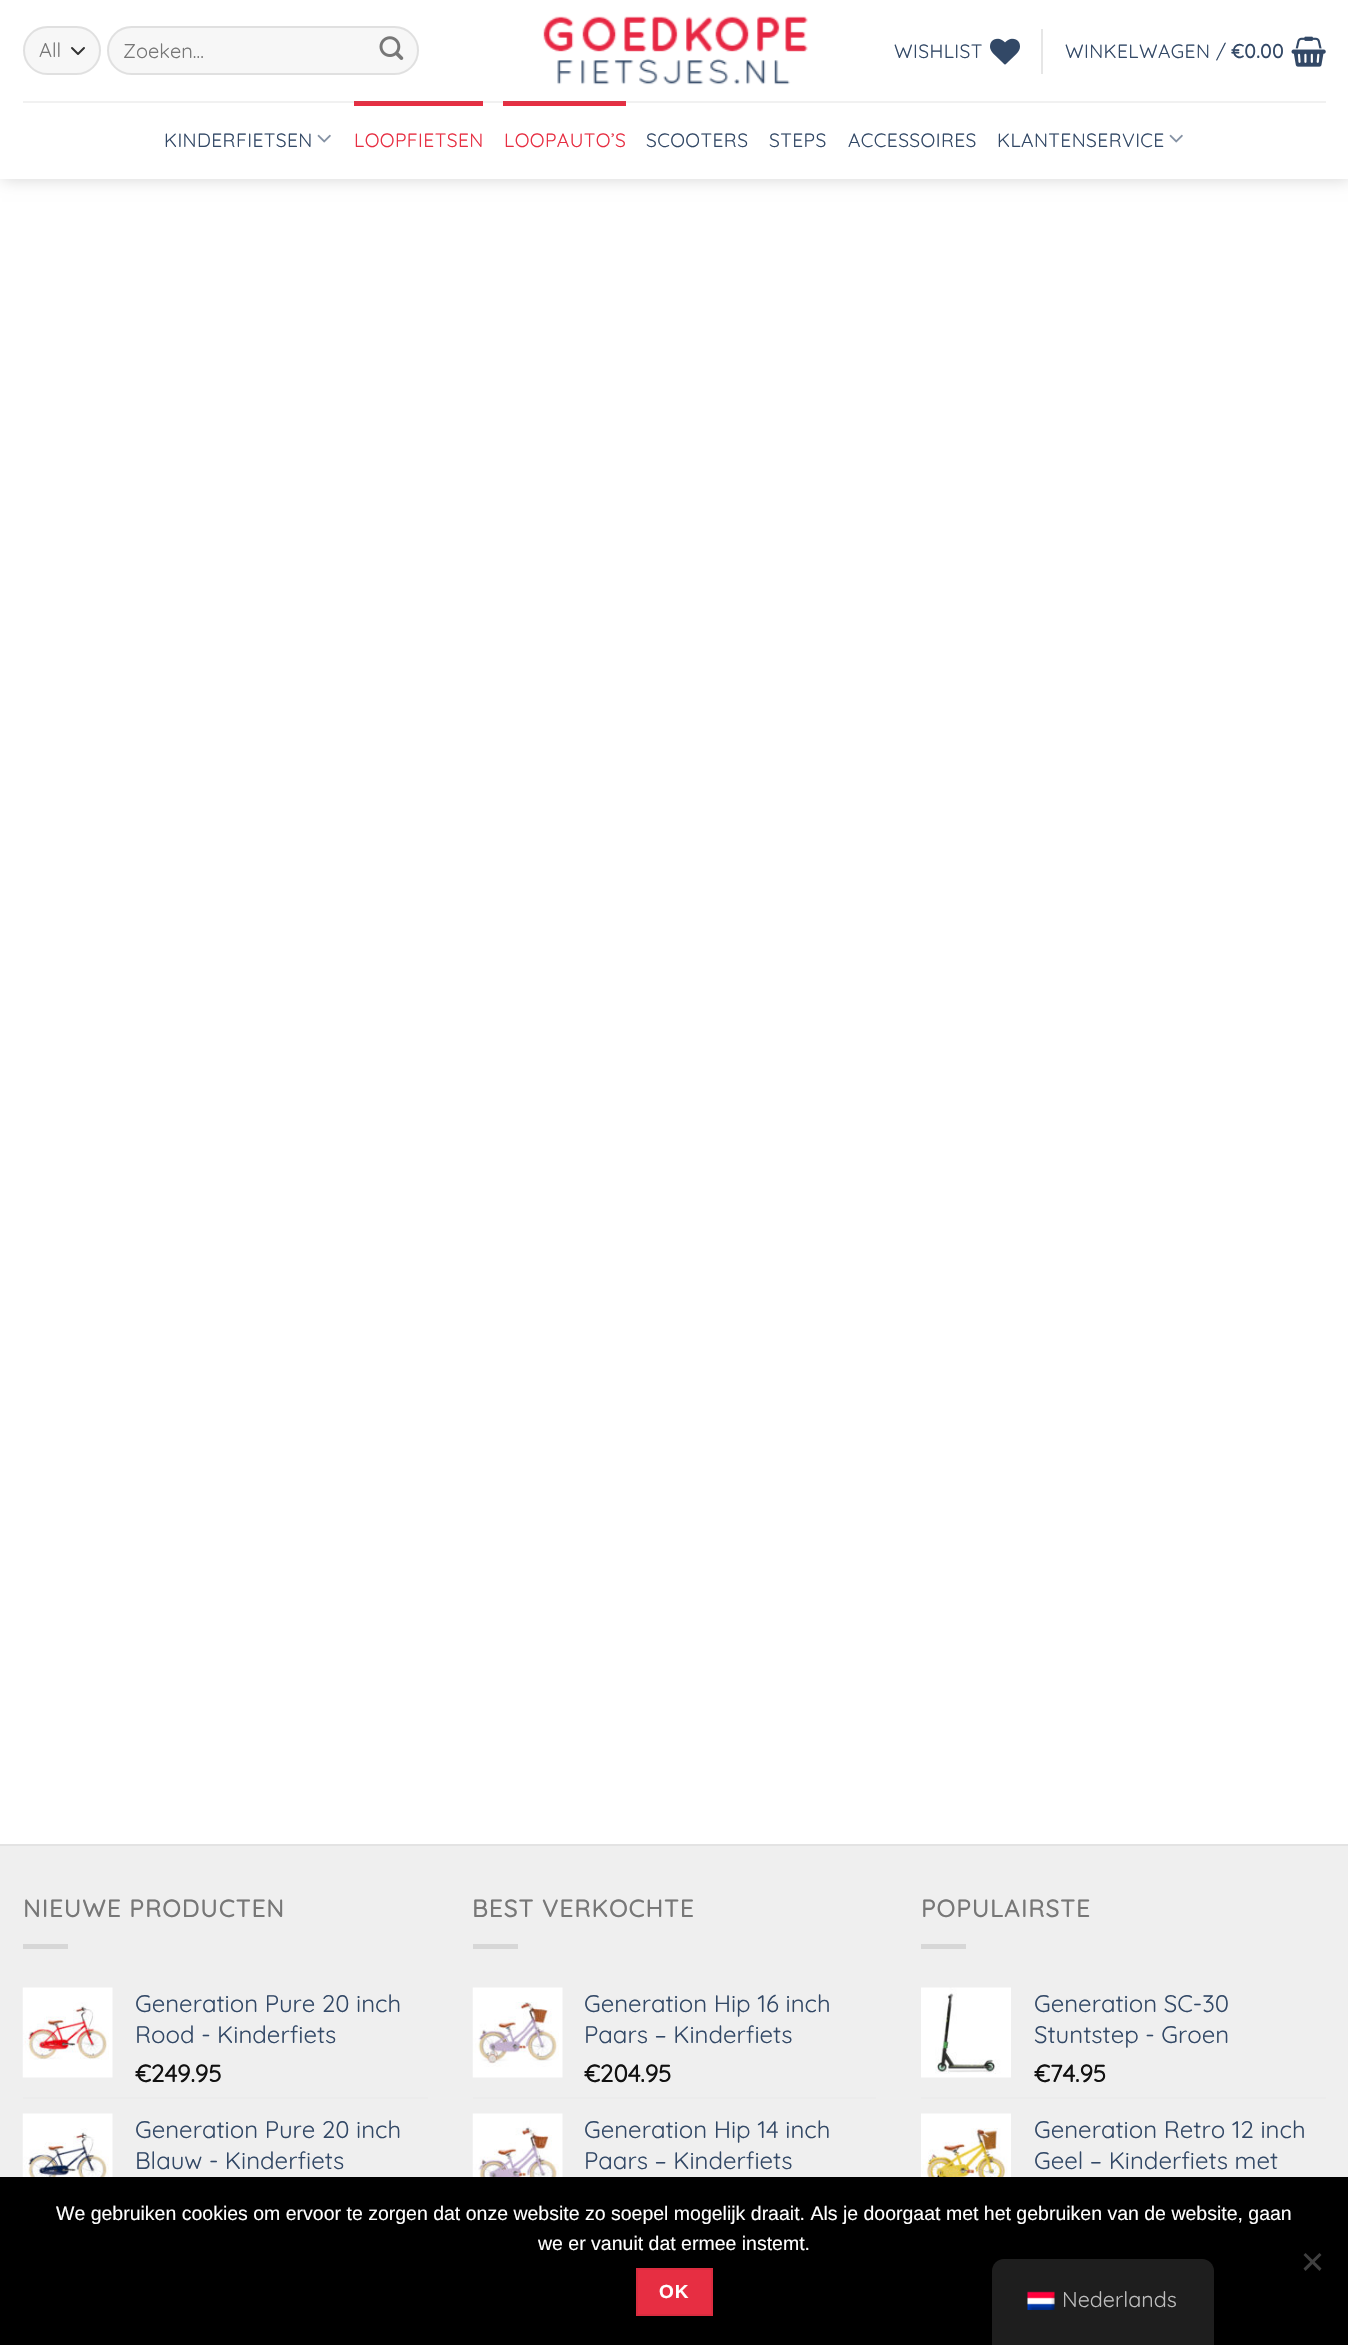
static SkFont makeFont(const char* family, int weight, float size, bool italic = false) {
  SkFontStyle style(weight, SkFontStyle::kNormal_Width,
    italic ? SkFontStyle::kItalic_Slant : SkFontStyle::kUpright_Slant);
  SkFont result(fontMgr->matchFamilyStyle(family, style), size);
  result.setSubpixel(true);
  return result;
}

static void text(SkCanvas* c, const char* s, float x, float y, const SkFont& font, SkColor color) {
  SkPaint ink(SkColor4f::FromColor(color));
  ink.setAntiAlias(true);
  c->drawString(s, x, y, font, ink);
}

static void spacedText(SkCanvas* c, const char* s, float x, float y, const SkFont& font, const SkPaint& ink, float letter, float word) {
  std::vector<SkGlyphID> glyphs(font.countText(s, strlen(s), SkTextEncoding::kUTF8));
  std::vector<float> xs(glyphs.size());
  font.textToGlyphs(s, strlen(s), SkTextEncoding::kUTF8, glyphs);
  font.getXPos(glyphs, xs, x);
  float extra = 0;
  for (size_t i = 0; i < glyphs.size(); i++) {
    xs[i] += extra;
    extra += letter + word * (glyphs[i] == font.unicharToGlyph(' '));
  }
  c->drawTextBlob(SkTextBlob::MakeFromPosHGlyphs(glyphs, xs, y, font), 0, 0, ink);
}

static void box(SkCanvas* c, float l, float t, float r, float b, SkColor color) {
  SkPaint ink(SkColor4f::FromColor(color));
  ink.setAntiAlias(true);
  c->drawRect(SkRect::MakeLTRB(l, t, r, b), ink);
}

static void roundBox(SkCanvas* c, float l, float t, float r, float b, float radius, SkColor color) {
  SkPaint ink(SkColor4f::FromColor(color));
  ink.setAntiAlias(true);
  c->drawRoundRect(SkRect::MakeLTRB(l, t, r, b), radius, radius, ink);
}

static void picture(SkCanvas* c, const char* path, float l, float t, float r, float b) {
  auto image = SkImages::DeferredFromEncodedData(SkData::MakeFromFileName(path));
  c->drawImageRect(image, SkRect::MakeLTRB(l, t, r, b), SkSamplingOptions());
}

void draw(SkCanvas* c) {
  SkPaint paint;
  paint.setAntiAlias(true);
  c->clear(0xffffffff);
  paint.setColor(0x26000000);
  paint.setMaskFilter(SkMaskFilter::MakeBlur(kNormal_SkBlurStyle, 7.5f));
  c->drawRect(SkRect::MakeLTRB(2, 2, 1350, 180), paint);
  paint.setMaskFilter(nullptr);
  box(c, 0, 0, 1348, 179, 0xffffffff);
  box(c, 23, 101, 1326, 103, 0xfff1f1f1);
  roundBox(c, 23, 26, 101, 75, 24.5f, 0xfff7f7f7);
  paint.setStyle(SkPaint::kStroke_Style);
  paint.setStrokeWidth(2);
  paint.setStrokeCap(SkPaint::kRound_Cap);
  paint.setStrokeJoin(SkPaint::kRound_Join);
  paint.setColor(0xff333333);
  c->drawPath(SkPathBuilder().moveTo(72, 48).lineTo(78, 54).lineTo(84, 48).detach(), paint);
  paint.setStrokeCap(SkPaint::kButt_Cap);
  paint.setStrokeJoin(SkPaint::kMiter_Join);
  paint.setColor(0x17000000);
  c->drawRoundRect(SkRect::MakeLTRB(24, 27, 100, 74), 23.5f, 23.5f, paint);
  SkFont face1 = makeFont("Quicksand", 400, 20);
  text(c, "All", 39, 57, face1, 0xff777777);
  roundBox(c, 107, 26, 419, 75, 24.5f, 0xfff7f7f7);
  c->drawRoundRect(SkRect::MakeLTRB(108, 27, 418, 74), 23.5f, 23.5f, paint);
  text(c, "Zoeken…", 123, 58, face1, 0xff777777);
  picture(c, "img_01.png", 379, 36, 404, 60);
  picture(c, "img_02.png", 543, 16, 808, 85);
  SkFont face2 = makeFont("Quicksand", 400, 19.25f);
  paint.setStyle(SkPaint::kFill_Style);
  paint.setColor(0xff324866);
  spacedText(c, "WISHLIST", 894, 58, face2, paint, 0.4f, 0);
  picture(c, "img_03.png", 990, 38, 1020, 65);
  box(c, 1041, 29, 1043, 74, 0xffe6e6e6);
  spacedText(c, "WINKELWAGEN /", 1065, 58, face2, paint, 0.4f, 0);
  SkFont face3 = makeFont("Quicksand", 700, 19.25f);
  spacedText(c, "€0.00", 1231, 58, face3, paint, 0.4f, 0);
  picture(c, "img_04.png", 1291, 36, 1326, 67);
  spacedText(c, "KINDERFIETSEN", 164, 147, face2, paint, 0.4f, 0);
  picture(c, "img_05.png", 317, 134, 331, 143);
  box(c, 354, 103, 483, 106, 0xffe72e42);
  box(c, 354, 101, 483, 103, 0xffdc3547);
  paint.setColor(0xffe72e42);
  spacedText(c, "LOOPFIETSEN", 354, 147, face2, paint, 0.4f, 0);
  box(c, 503, 103, 626, 106, 0xffe72e42);
  box(c, 503, 101, 626, 103, 0xffdc3547);
  spacedText(c, "LOOPAUTO’S", 504, 147, face2, paint, 0.4f, 0);
  paint.setColor(0xff324866);
  spacedText(c, "SCOOTERS", 646, 147, face2, paint, 0.4f, 0);
  spacedText(c, "STEPS", 769, 147, face2, paint, 0.4f, 0);
  spacedText(c, "ACCESSOIRES", 848, 147, face2, paint, 0.4f, 0);
  spacedText(c, "KLANTENSERVICE", 997, 147, face2, paint, 0.4f, 0);
  picture(c, "img_05.png", 1169, 134, 1183, 143);
  box(c, 0, 1846, 1348, 2177, 0xffefefef);
  box(c, 0, 1844, 1348, 1846, 0xffe3e3e3);
  SkFont face4 = makeFont("Quicksand", 700, 24);
  paint.setColor(0xff777777);
  spacedText(c, "NIEUWE PRODUCTEN", 23, 1917, face4, paint, 1.25f, 0);
  box(c, 23, 1944, 68, 1949, 0xffd7d7d7);
  picture(c, "img_06.png", 22, 1987, 113, 2078);
  SkFont face5 = makeFont("Quicksand", 400, 24);
  text(c, "Generation Pure 20 inch", 135, 2012, face5, 0xff324866);
  text(c, "Rood - Kinderfiets", 135, 2043, face5, 0xff324866);
  text(c, "€249.95", 135, 2082, face4, 0xff111111);
  box(c, 23, 2097, 428, 2099, 0xffececec);
  picture(c, "img_07.png", 22, 2113, 113, 2177);
  text(c, "Generation Pure 20 inch", 135, 2138, face5, 0xff324866);
  text(c, "Blauw - Kinderfiets", 135, 2169, face5, 0xff324866);
  spacedText(c, "BEST VERKOCHTE", 472, 1917, face4, paint, 1.25f, 0);
  box(c, 473, 1944, 518, 1949, 0xffd7d7d7);
  picture(c, "img_08.png", 472, 1987, 563, 2078);
  text(c, "Generation Hip 16 inch", 584, 2012, face5, 0xff324866);
  text(c, "Paars – Kinderfiets", 584, 2043, face5, 0xff324866);
  text(c, "€204.95", 584, 2082, face4, 0xff111111);
  box(c, 473, 2097, 876, 2099, 0xffececec);
  picture(c, "img_09.png", 472, 2113, 563, 2177);
  text(c, "Generation Hip 14 inch", 584, 2138, face5, 0xff324866);
  text(c, "Paars – Kinderfiets", 584, 2169, face5, 0xff324866);
  spacedText(c, "POPULAIRSTE", 921, 1917, face4, paint, 1.25f, 0);
  box(c, 921, 1944, 966, 1949, 0xffd7d7d7);
  picture(c, "img_10.png", 921, 1987, 1011, 2078);
  text(c, "Generation SC-30", 1034, 2012, face5, 0xff324866);
  text(c, "Stuntstep - Groen", 1034, 2043, face5, 0xff324866);
  text(c, "€74.95", 1034, 2082, face4, 0xff111111);
  box(c, 921, 2097, 1326, 2099, 0xffececec);
  picture(c, "img_11.png", 921, 2113, 1011, 2177);
  text(c, "Generation Retro 12 inch", 1034, 2138, face5, 0xff324866);
  text(c, "Geel – Kinderfiets met", 1034, 2169, face5, 0xff324866);
  box(c, 0, 2177, 1348, 2345, 0xff000000);
  SkFont face6 = makeFont("Liberation Sans", 400, 19.5f);
  text(c, "We gebruiken cookies om ervoor te zorgen dat onze website zo soepel mogelijk draait. Als je doorgaat met het gebruiken van de website, gaan", 56, 2220, face6, 0xffffffff);
  text(c, "we er vanuit dat ermee instemt.", 538, 2250, face6, 0xffffffff);
  paint.setColor(0xff404040);
  c->drawPath(SkPathBuilder().moveTo(1319.5f, 2253).lineTo(1321.5f, 2255).lineTo(1305.5f, 2271).lineTo(1303.5f, 2268.5f).close().detach(), paint);
  c->drawPath(SkPathBuilder().moveTo(1303.5f, 2255).lineTo(1305.5f, 2253).lineTo(1321.5f, 2268.5f).lineTo(1319.5f, 2271).close().detach(), paint);
  paint.setColor(0xffe72e42);
  c->drawRect(SkRect::MakeLTRB(637, 2269, 712, 2315), paint);
  paint.setStyle(SkPaint::kStroke_Style);
  paint.setColor(0xffdb2c3f);
  c->drawRect(SkRect::MakeLTRB(637, 2269, 712, 2315), paint);
  SkFont face7 = makeFont("Liberation Sans", 700, 19);
  paint.setStyle(SkPaint::kFill_Style);
  paint.setColor(0xffffffff);
  spacedText(c, "OK", 659, 2298, face7, paint, 1, 0);
  paint.setColor(0xff1e1e1e);
  c->drawPath(SkPathBuilder().moveTo(1004, 2259).lineTo(1202, 2259).cubicTo(1208.5f, 2259, 1214, 2264.5f, 1214, 2271).lineTo(1214, 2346).lineTo(992, 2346).lineTo(992, 2271).cubicTo(992, 2264.5f, 997.5f, 2259, 1004, 2259).close().detach(), paint);
  picture(c, "img_12.png", 1027, 2291, 1055, 2310);
  SkFont face8 = makeFont("Quicksand", 400, 21.5f);
  text(c, "Nederlands", 1062, 2307, face8, 0xffbdbdbd);
}
